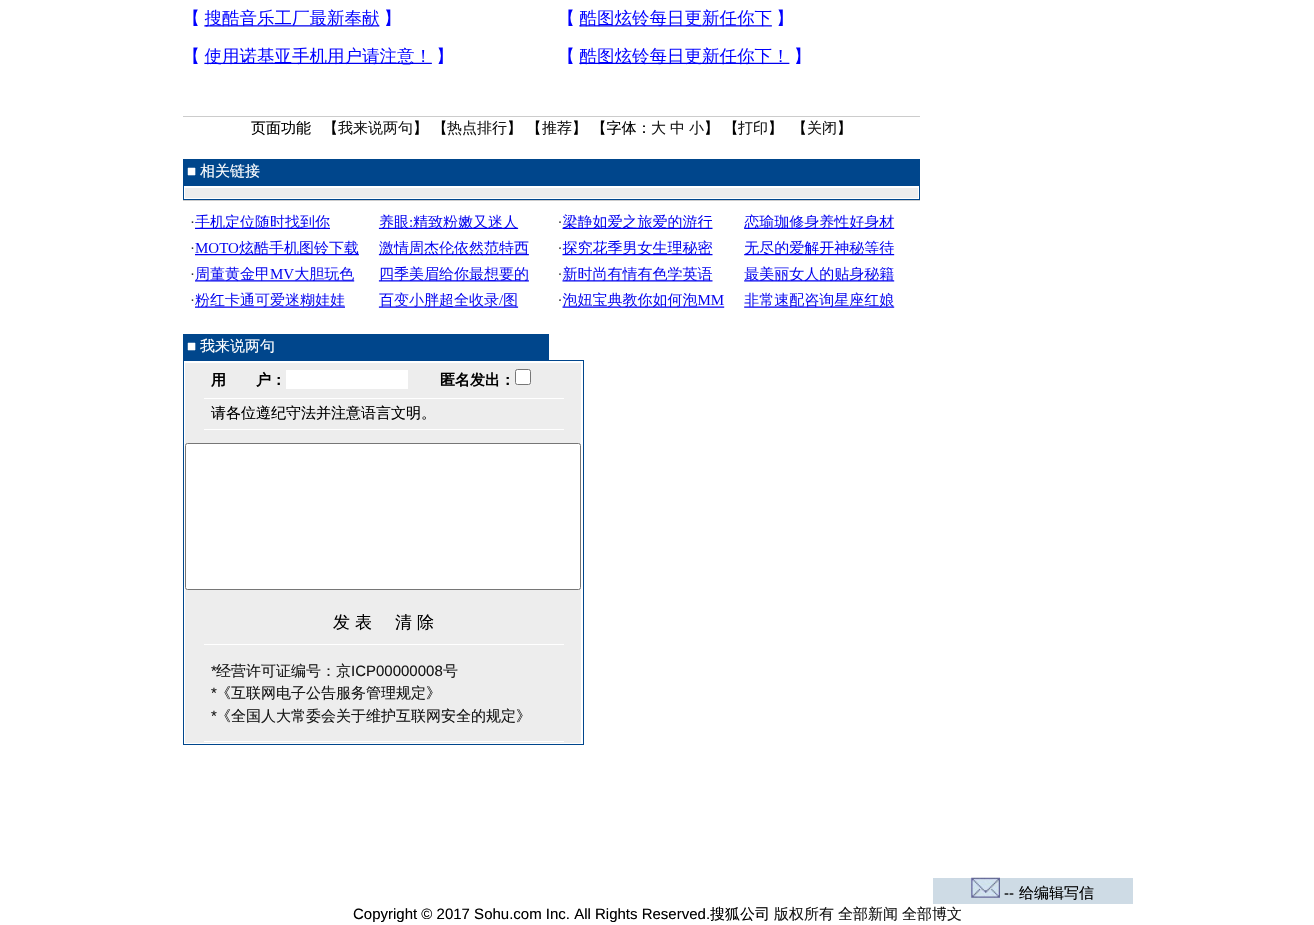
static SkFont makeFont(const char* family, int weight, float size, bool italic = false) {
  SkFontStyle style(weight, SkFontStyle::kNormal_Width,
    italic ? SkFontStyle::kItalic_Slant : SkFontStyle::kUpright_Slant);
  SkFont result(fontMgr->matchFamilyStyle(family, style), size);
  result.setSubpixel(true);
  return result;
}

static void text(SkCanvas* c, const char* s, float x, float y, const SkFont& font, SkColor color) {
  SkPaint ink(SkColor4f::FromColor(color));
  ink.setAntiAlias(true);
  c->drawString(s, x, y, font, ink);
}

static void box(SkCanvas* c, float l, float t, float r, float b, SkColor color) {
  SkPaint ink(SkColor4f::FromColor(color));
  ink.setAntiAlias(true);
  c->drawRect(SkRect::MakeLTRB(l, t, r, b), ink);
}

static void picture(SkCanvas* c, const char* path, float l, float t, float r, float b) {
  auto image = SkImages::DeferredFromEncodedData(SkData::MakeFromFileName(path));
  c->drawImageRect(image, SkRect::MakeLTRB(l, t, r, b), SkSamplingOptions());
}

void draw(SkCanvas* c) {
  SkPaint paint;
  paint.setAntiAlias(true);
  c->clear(0xffffffff);
  picture(c, "img_01.png", 193, 9, 783, 27);
  picture(c, "img_02.png", 193, 47, 801, 65);
  box(c, 183, 116, 920, 117, 0xffcccccc);
  SkFont face1 = makeFont("WenQuanYi Zen Hei", 500, 15);
  text(c, "页面功能", 251, 133, face1, 0xff000000);
  text(c, "【", 323, 133, face1, 0xff000000);
  text(c, "我来说两句", 338, 133, face1, 0xff191919);
  text(c, "】 【", 413, 133, face1, 0xff000000);
  text(c, "热点排行", 447, 133, face1, 0xff191919);
  text(c, "】 【", 507, 133, face1, 0xff000000);
  text(c, "推荐", 542, 133, face1, 0xff191919);
  text(c, "】 【字体：", 572, 133, face1, 0xff000000);
  text(c, "大", 651, 133, face1, 0xff191919);
  text(c, "中", 670, 133, face1, 0xff191919);
  text(c, "小", 689, 133, face1, 0xff191919);
  text(c, "】 【", 704, 133, face1, 0xff000000);
  text(c, "打印", 738, 133, face1, 0xff191919);
  text(c, "】", 768, 133, face1, 0xff000000);
  text(c, "【", 792, 133, face1, 0xff000000);
  text(c, "关闭", 807, 133, face1, 0xff191919);
  text(c, "】", 837, 133, face1, 0xff000000);
  box(c, 183, 159, 920, 200, 0xff00468c);
  SkFont face2 = makeFont("Liberation Sans", 400, 15);
  text(c, "■", 187, 176, face2, 0xffffffff);
  text(c, "相关链接", 200, 176, face1, 0xffffffff);
  box(c, 184, 186, 919, 199, 0xffffffff);
  box(c, 185, 188, 918, 198, 0xffededed);
  box(c, 183, 200, 920, 201, 0xffcccccc);
  picture(c, "img_03.png", 191, 214, 529, 308);
  picture(c, "img_04.png", 559, 214, 895, 308);
  box(c, 183, 334, 549, 360, 0xff00468c);
  text(c, "■", 187, 351, face2, 0xffffffff);
  text(c, "我来说两句", 200, 351, face1, 0xffffffff);
  box(c, 183, 360, 584, 745, 0xff00468c);
  box(c, 184, 361, 583, 744, 0xffffffff);
  box(c, 185, 363, 581, 743, 0xffededed);
  SkFont face3 = makeFont("WenQuanYi Zen Hei", 700, 15);
  text(c, "用　　户：", 211, 385, face3, 0xff000000);
  box(c, 286, 370, 408, 389, 0xffffffff);
  text(c, "匿名发出：", 440, 385, face3, 0xff000000);
  paint.setColor(0xffffffff);
  c->drawRoundRect(SkRect::MakeLTRB(515.5f, 369.5f, 530.5f, 384.5f), 2, 2, paint);
  paint.setStyle(SkPaint::kStroke_Style);
  paint.setStrokeWidth(1);
  paint.setColor(0xff767676);
  c->drawRoundRect(SkRect::MakeLTRB(515.5f, 369.5f, 530.5f, 384.5f), 2, 2, paint);
  box(c, 204, 398, 564, 399, 0xffffffff);
  text(c, "请各位遵纪守法并注意语言文明。", 211, 418, face1, 0xff000000);
  box(c, 204, 429, 564, 430, 0xffffffff);
  paint.setStyle(SkPaint::kFill_Style);
  paint.setColor(0xffffffff);
  c->drawRoundRect(SkRect::MakeLTRB(185.5f, 443.5f, 580.5f, 589.5f), 2, 2, paint);
  paint.setStyle(SkPaint::kStroke_Style);
  paint.setColor(0xff767676);
  c->drawRoundRect(SkRect::MakeLTRB(185.5f, 443.5f, 580.5f, 589.5f), 2, 2, paint);
  SkFont face4 = makeFont("WenQuanYi Zen Hei", 500, 17);
  text(c, "发 表", 333, 628, face4, 0xff000000);
  text(c, "清 除", 395, 628, face4, 0xff000000);
  box(c, 204, 644, 564, 645, 0xffffffff);
  text(c, "*", 211, 676, face2, 0xff191919);
  text(c, "经营许可证编号：京", 216, 676, face1, 0xff191919);
  text(c, "ICP00000008", 351, 676, face2, 0xff191919);
  text(c, "号", 443, 676, face1, 0xff191919);
  text(c, "*", 211, 698, face2, 0xff191919);
  text(c, "《互联网电子公告服务管理规定》", 216, 698, face1, 0xff191919);
  text(c, "*", 211, 721, face2, 0xff191919);
  text(c, "《全国人大常委会关于维护互联网安全的规定》", 216, 721, face1, 0xff191919);
  box(c, 204, 741, 564, 742, 0xffffffff);
  box(c, 933, 878, 1133, 904, 0xffcedbe5);
  picture(c, "img_05.png", 971, 877, 1000, 898);
  text(c, "--", 1004, 898, face2, 0xff000000);
  text(c, "给编辑写信", 1019, 898, face1, 0xff000000);
  text(c, "Copyright © 2017 Sohu.com Inc. All Rights Reserved.", 353, 919, face2, 0xff000000);
  text(c, "搜狐公司", 710, 919, face1, 0xff000000);
  text(c, "版权所有", 774, 919, face1, 0xff191919);
  text(c, "全部新闻", 838, 919, face1, 0xff191919);
  text(c, "全部博文", 902, 919, face1, 0xff191919);
}
